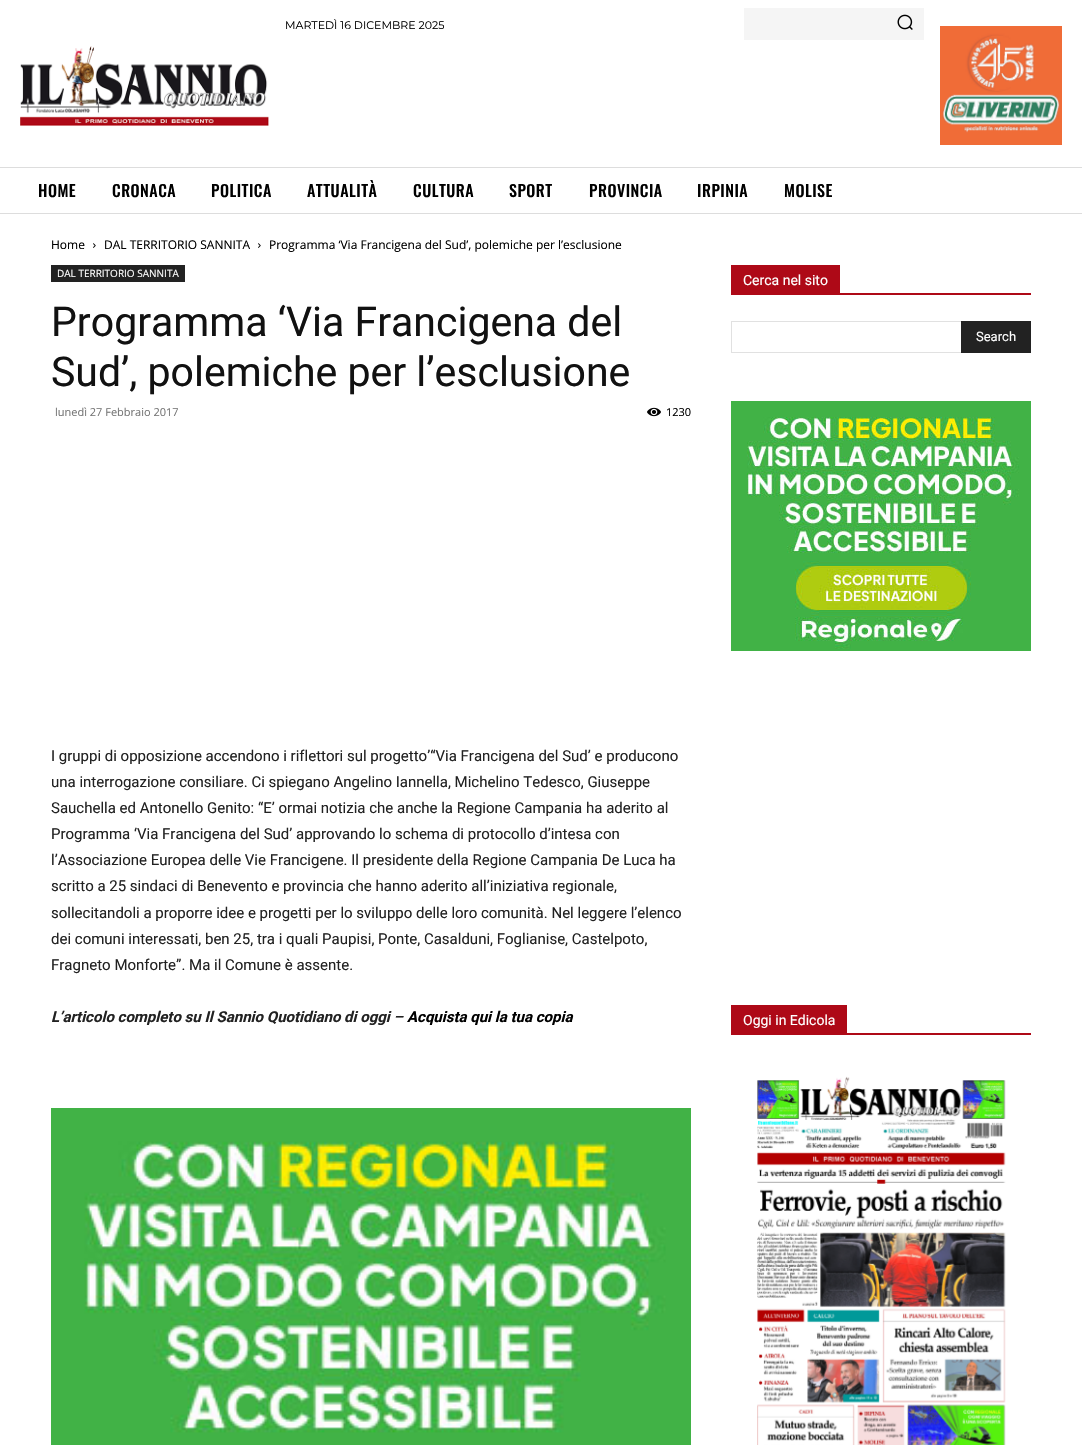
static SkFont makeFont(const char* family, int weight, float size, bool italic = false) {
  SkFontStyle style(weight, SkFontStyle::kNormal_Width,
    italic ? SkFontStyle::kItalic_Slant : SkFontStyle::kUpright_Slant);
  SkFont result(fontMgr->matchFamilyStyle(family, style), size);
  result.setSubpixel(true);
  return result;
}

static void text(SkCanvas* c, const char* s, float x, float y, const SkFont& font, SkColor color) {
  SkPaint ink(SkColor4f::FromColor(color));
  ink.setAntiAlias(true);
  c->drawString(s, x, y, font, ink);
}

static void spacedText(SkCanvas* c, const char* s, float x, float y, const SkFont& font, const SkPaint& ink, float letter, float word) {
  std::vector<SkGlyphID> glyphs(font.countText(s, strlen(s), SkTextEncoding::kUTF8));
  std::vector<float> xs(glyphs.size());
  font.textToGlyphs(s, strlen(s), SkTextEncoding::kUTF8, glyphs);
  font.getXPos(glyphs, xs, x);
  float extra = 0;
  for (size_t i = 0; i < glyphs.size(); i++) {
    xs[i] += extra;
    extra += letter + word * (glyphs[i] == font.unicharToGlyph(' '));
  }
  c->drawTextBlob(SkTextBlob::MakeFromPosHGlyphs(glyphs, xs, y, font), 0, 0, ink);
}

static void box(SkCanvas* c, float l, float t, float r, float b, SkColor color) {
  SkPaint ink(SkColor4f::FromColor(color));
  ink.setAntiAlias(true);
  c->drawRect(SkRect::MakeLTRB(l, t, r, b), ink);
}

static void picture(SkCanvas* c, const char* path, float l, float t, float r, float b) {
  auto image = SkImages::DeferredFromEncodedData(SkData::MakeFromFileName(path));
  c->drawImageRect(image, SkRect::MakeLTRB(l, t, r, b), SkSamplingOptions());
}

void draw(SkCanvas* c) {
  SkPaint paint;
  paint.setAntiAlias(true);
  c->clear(0xffffffff);
  SkFont face1 = makeFont("Montserrat", 100, 11);
  text(c, "MARTEDÌ 16 DICEMBRE 2025", 285, 29, face1, 0xff000000);
  box(c, 744, 8, 924, 40, 0xfff5f5f5);
  picture(c, "img_01.png", 897, 14, 913, 30);
  picture(c, "img_02.png", 20, 46, 269, 126);
  picture(c, "img_03.png", 940, 26, 1062, 145);
  box(c, 0, 167, 1082, 168, 0xffdddddd);
  box(c, 0, 213, 1082, 214, 0xffdddddd);
  SkFont face2 = makeFont("Oswald", 500, 16);
  paint.setColor(0xff000000);
  spacedText(c, "HOME", 38, 197, face2, paint, 0.5f, 0);
  spacedText(c, "CRONACA", 112, 197, face2, paint, 0.5f, 0);
  spacedText(c, "POLITICA", 211, 197, face2, paint, 0.5f, 0);
  spacedText(c, "ATTUALITÀ", 307, 197, face2, paint, 0.5f, 0);
  spacedText(c, "CULTURA", 413, 197, face2, paint, 0.5f, 0);
  spacedText(c, "SPORT", 509, 197, face2, paint, 0.5f, 0);
  spacedText(c, "PROVINCIA", 589, 197, face2, paint, 0.5f, 0);
  spacedText(c, "IRPINIA", 697, 197, face2, paint, 0.5f, 0);
  spacedText(c, "MOLISE", 784, 197, face2, paint, 0.5f, 0);
  SkFont face3 = makeFont("Open Sans", 400, 12);
  text(c, "Home", 51, 249, face3, 0xff000000);
  picture(c, "img_04.png", 93, 243, 96, 248);
  text(c, "DAL TERRITORIO SANNITA", 104, 249, face3, 0xff000000);
  picture(c, "img_04.png", 258, 243, 261, 248);
  text(c, "Programma ‘Via Francigena del Sud’, polemiche per l’esclusione", 269, 249, face3, 0xff000000);
  box(c, 51, 265, 185, 282, 0xff222222);
  SkFont face4 = makeFont("Open Sans", 400, 10);
  text(c, "DAL TERRITORIO SANNITA", 57, 277, face4, 0xffffffff);
  SkFont face5 = makeFont("Roboto", 400, 41);
  text(c, "Programma ‘Via Francigena del", 51, 336, face5, 0xff111111);
  text(c, "Sud’, polemiche per l’esclusione", 51, 386, face5, 0xff111111);
  SkFont face6 = makeFont("Open Sans", 400, 11);
  text(c, "lunedì 27 Febbraio 2017", 55, 416, face6, 0xff767676);
  picture(c, "img_05.png", 647, 407, 661, 417);
  text(c, "1230", 666, 416, face6, 0xff000000);
  SkFont face7 = makeFont("Roboto", 400, 15);
  text(c, "I gruppi di opposizione accendono i riflettori sul progetto’“Via Francigena del Sud’ e producono", 51, 761, face7, 0xff222222);
  text(c, "una interrogazione consiliare. Ci spiegano Angelino Iannella, Michelino Tedesco, Giuseppe", 51, 787, face7, 0xff222222);
  text(c, "Sauchella ed Antonello Genito: “E’ ormai notizia che anche la Regione Campania ha aderito al", 51, 813, face7, 0xff222222);
  text(c, "Programma ‘Via Francigena del Sud’ approvando lo schema di protocollo d’intesa con", 51, 839, face7, 0xff222222);
  text(c, "l’Associazione Europea delle Vie Francigene. Il presidente della Regione Campania De Luca ha", 51, 865, face7, 0xff222222);
  text(c, "scritto a 25 sindaci di Benevento e provincia che hanno aderito all’iniziativa regionale,", 51, 891, face7, 0xff222222);
  text(c, "sollecitandoli a proporre idee e progetti per lo sviluppo delle loro comunità. Nel leggere l’elenco", 51, 918, face7, 0xff222222);
  text(c, "dei comuni interessati, ben 25, tra i quali Paupisi, Ponte, Casalduni, Foglianise, Castelpoto,", 51, 944, face7, 0xff222222);
  text(c, "Fragneto Monforte”. Ma il Comune è assente.", 51, 970, face7, 0xff222222);
  SkFont face8 = makeFont("Roboto", 700, 15, true);
  text(c, "L’articolo completo su Il Sannio Quotidiano di oggi –", 51, 1022, face8, 0xff222222);
  text(c, "Acquista qui la tua copia", 407, 1022, face8, 0xff000000);
  picture(c, "img_06.png", 51, 1108, 691, 1445);
  box(c, 731, 293, 1031, 295, 0xffae0917);
  box(c, 731, 265, 840, 293, 0xffae0917);
  SkFont face9 = makeFont("Roboto", 400, 14);
  text(c, "Cerca nel sito", 743, 285, face9, 0xffffffff);
  box(c, 731, 321, 961, 322, 0xffe1e1e1);
  box(c, 731, 352, 961, 353, 0xffe1e1e1);
  box(c, 731, 321, 732, 353, 0xffe1e1e1);
  box(c, 961, 321, 1031, 353, 0xff222222);
  SkFont face10 = makeFont("Roboto", 400, 13);
  text(c, "Search", 976, 341, face10, 0xffffffff);
  picture(c, "img_07.png", 731, 401, 1031, 651);
  box(c, 731, 1033, 1031, 1035, 0xffae0917);
  box(c, 731, 1005, 847, 1033, 0xffae0917);
  text(c, "Oggi in Edicola", 743, 1025, face9, 0xffffffff);
  picture(c, "img_08.png", 757, 1076, 1006, 1445);
}
